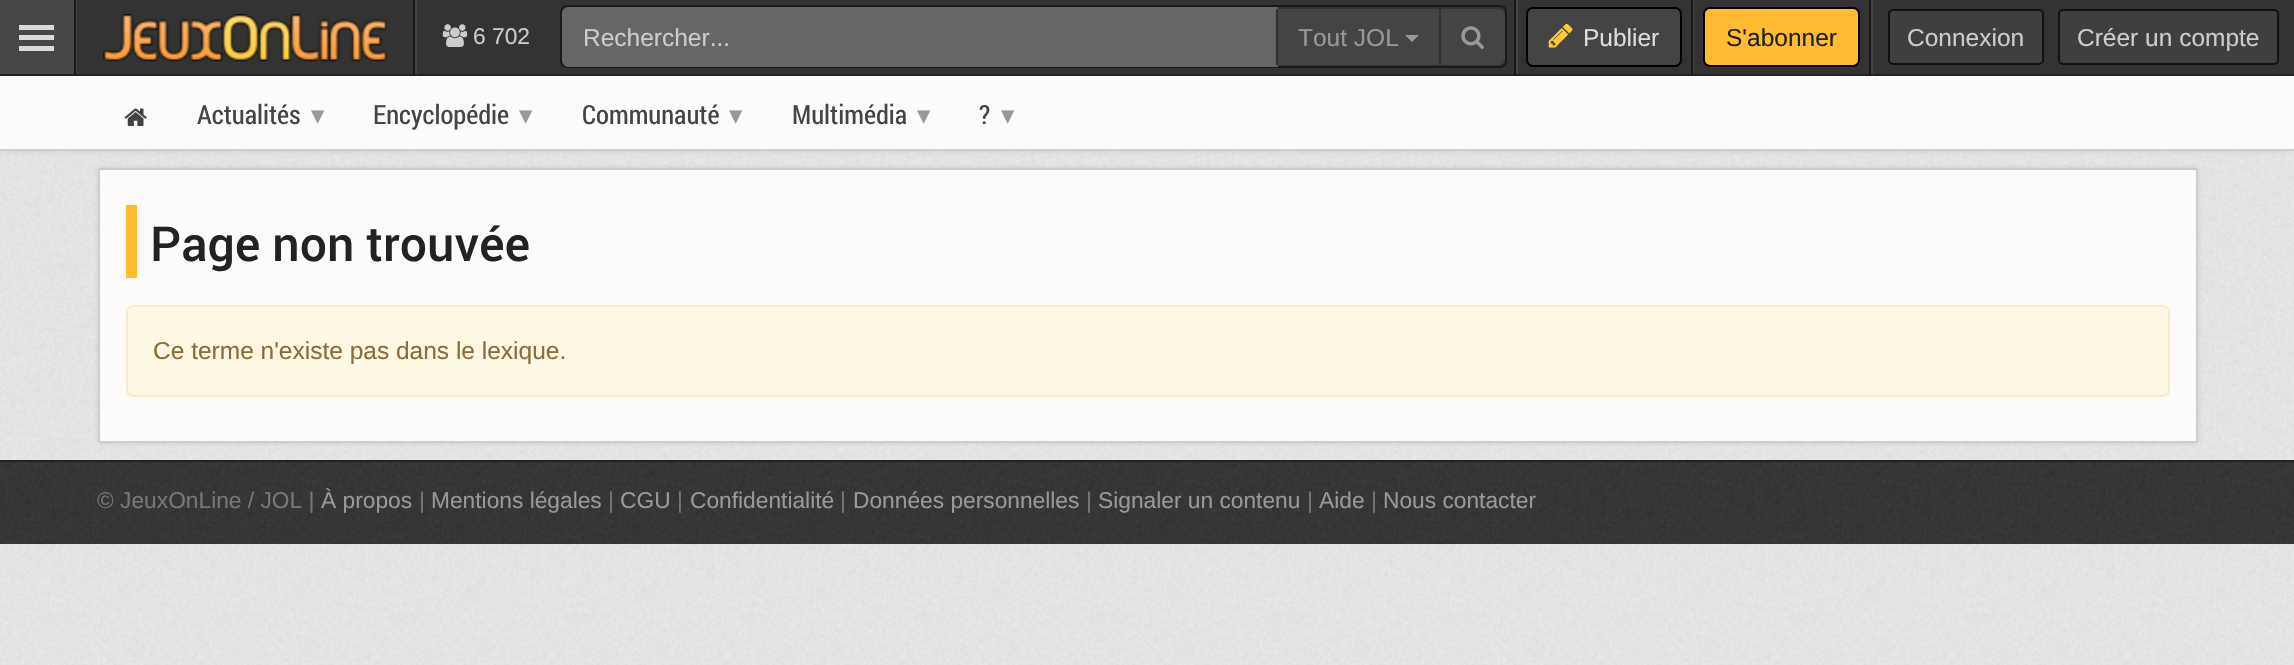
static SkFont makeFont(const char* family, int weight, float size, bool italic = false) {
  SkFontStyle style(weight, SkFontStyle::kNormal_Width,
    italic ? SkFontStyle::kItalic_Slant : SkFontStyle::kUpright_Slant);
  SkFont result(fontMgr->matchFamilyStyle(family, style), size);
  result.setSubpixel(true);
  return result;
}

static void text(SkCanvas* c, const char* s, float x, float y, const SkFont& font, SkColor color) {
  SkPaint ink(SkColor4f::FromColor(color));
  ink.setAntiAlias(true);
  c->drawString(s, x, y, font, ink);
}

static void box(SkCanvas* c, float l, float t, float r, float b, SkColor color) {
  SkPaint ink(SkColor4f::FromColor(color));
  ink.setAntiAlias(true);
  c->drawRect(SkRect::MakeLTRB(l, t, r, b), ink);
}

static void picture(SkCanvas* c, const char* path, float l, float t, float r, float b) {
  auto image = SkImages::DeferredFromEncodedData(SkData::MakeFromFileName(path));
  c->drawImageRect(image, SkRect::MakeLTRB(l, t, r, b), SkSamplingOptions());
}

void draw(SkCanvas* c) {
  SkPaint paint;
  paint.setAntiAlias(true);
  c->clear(0xffeae9e8);
  picture(c, "img_01.png", 0, 151, 2294, 665);
  box(c, 77, 0, 2294, 74, 0xff333333);
  box(c, 76, 0, 77, 75, 0xff444444);
  box(c, 415, 0, 417, 75, 0xff444444);
  box(c, 1516, 0, 1518, 75, 0xff444444);
  box(c, 1693, 0, 1694, 75, 0xff444444);
  box(c, 1871, 0, 1873, 75, 0xff444444);
  paint.setColor(0x1f000000);
  paint.setMaskFilter(SkMaskFilter::MakeBlur(kNormal_SkBlurStyle, 2));
  c->drawRect(SkRect::MakeLTRB(4, 82, 2291, 151), paint);
  paint.setMaskFilter(nullptr);
  box(c, 0, 74, 2294, 76, 0xff222222);
  box(c, 0, 0, 74, 74, 0xff474747);
  box(c, 19, 25, 54, 30, 0xffdadada);
  box(c, 19, 35, 54, 40, 0xffdadada);
  box(c, 19, 46, 54, 51, 0xffdadada);
  box(c, 74, 0, 76, 75, 0xff181818);
  picture(c, "img_02.png", 103, 14, 387, 62);
  box(c, 413, 0, 415, 75, 0xff181818);
  picture(c, "img_03.png", 442, 24, 468, 47);
  SkFont face1 = makeFont("Liberation Sans", 400, 22.75f);
  text(c, "6 702", 473, 44, face1, 0xffcccccc);
  paint.setStyle(SkPaint::kStroke_Style);
  paint.setStrokeWidth(2);
  paint.setColor(0xff1a1a1a);
  c->drawRoundRect(SkRect::MakeLTRB(561, 6, 1506, 67), 6, 6, paint);
  paint.setStyle(SkPaint::kFill_Style);
  paint.setColor(0xff666666);
  c->drawPath(SkPathBuilder().moveTo(569, 7).lineTo(1278, 7).lineTo(1278, 67).lineTo(569, 67).cubicTo(565, 67, 562, 64, 562, 60).lineTo(562, 14).cubicTo(562, 10, 565, 7, 569, 7).close().detach(), paint);
  SkFont face2 = makeFont("Liberation Sans", 400, 24.5f);
  text(c, "Rechercher...", 583, 46, face2, 0xffcccccc);
  box(c, 1278, 9, 1439, 65, 0xff444444);
  box(c, 1276, 9, 1278, 65, 0xff303030);
  text(c, "Tout JOL", 1298, 46, face2, 0xff999999);
  paint.setColor(0xff999999);
  c->drawPath(SkPathBuilder().moveTo(1405, 35).lineTo(1419, 35).lineTo(1412, 42).close().detach(), paint);
  paint.setColor(0xff444444);
  c->drawPath(SkPathBuilder().moveTo(1439, 9).lineTo(1498, 9).cubicTo(1502, 9, 1505, 12, 1505, 16).lineTo(1505, 58).cubicTo(1505, 62, 1502, 65, 1498, 65).lineTo(1439, 65).close().detach(), paint);
  box(c, 1439, 9, 1441, 65, 0xff303030);
  picture(c, "img_04.png", 1461, 26, 1484, 49);
  box(c, 1514, 0, 1516, 75, 0xff181818);
  c->drawRoundRect(SkRect::MakeLTRB(1527, 8, 1681, 66), 6, 6, paint);
  paint.setStyle(SkPaint::kStroke_Style);
  paint.setColor(0xff000000);
  c->drawRoundRect(SkRect::MakeLTRB(1527, 8, 1681, 66), 6, 6, paint);
  picture(c, "img_05.png", 1548, 23, 1573, 48);
  text(c, "Publier", 1583, 46, face2, 0xffdddddd);
  box(c, 1691, 0, 1693, 75, 0xff181818);
  paint.setStyle(SkPaint::kFill_Style);
  paint.setColor(0xffffbb33);
  c->drawRoundRect(SkRect::MakeLTRB(1704, 8, 1859, 66), 6, 6, paint);
  paint.setStyle(SkPaint::kStroke_Style);
  paint.setColor(0xff000000);
  c->drawRoundRect(SkRect::MakeLTRB(1704, 8, 1859, 66), 6, 6, paint);
  text(c, "S'abonner", 1726, 46, face2, 0xff222222);
  box(c, 1869, 0, 1871, 75, 0xff181818);
  paint.setStyle(SkPaint::kFill_Style);
  paint.setColor(0xff3f3f3f);
  c->drawRoundRect(SkRect::MakeLTRB(1889, 10, 2043, 64), 4, 4, paint);
  paint.setStyle(SkPaint::kStroke_Style);
  paint.setColor(0xff111111);
  c->drawRoundRect(SkRect::MakeLTRB(1889, 10, 2043, 64), 4, 4, paint);
  text(c, "Connexion", 1907, 46, face2, 0xffcccccc);
  paint.setStyle(SkPaint::kFill_Style);
  paint.setColor(0xff3f3f3f);
  c->drawRoundRect(SkRect::MakeLTRB(2059, 10, 2278, 64), 4, 4, paint);
  paint.setStyle(SkPaint::kStroke_Style);
  paint.setColor(0xff111111);
  c->drawRoundRect(SkRect::MakeLTRB(2059, 10, 2278, 64), 4, 4, paint);
  text(c, "Créer un compte", 2077, 46, face2, 0xffcccccc);
  box(c, 0, 76, 2294, 149, 0xfffcfbfa);
  box(c, 0, 149, 2294, 151, 0xffcdcdcd);
  picture(c, "img_06.png", 124, 108, 147, 126);
  SkFont face3 = makeFont("Roboto Condensed", 400, 26.5f);
  text(c, "Actualités", 197, 124, face3, 0xff444444);
  SkFont face4 = makeFont("DejaVu Sans", 400, 26.5f);
  text(c, "▾", 311, 124, face4, 0xff999999);
  text(c, "Encyclopédie", 373, 124, face3, 0xff444444);
  text(c, "▾", 519, 124, face4, 0xff999999);
  text(c, "Communauté", 582, 124, face3, 0xff444444);
  text(c, "▾", 729, 124, face4, 0xff999999);
  text(c, "Multimédia", 792, 124, face3, 0xff444444);
  text(c, "▾", 917, 124, face4, 0xff999999);
  text(c, "?", 979, 124, face3, 0xff444444);
  text(c, "▾", 1001, 124, face4, 0xff999999);
  paint.setStyle(SkPaint::kFill_Style);
  paint.setColor(0x1f000000);
  paint.setMaskFilter(SkMaskFilter::MakeBlur(kNormal_SkBlurStyle, 2));
  c->drawRoundRect(SkRect::MakeLTRB(98, 168, 2198, 443), 2, 2, paint);
  paint.setMaskFilter(nullptr);
  paint.setColor(0xfffcfbfa);
  c->drawRoundRect(SkRect::MakeLTRB(99, 169, 2197, 442), 1, 1, paint);
  paint.setStyle(SkPaint::kStroke_Style);
  paint.setColor(0xffcdcdcd);
  c->drawRoundRect(SkRect::MakeLTRB(99, 169, 2197, 442), 1, 1, paint);
  box(c, 126, 205, 137, 278, 0xffffbb33);
  SkFont face5 = makeFont("Roboto", 500, 48.25f);
  text(c, "Page non trouvée", 150, 261, face5, 0xff222222);
  paint.setStyle(SkPaint::kFill_Style);
  paint.setColor(0xfffcf8e3);
  c->drawRoundRect(SkRect::MakeLTRB(127, 306, 2169, 396), 6, 6, paint);
  paint.setStyle(SkPaint::kStroke_Style);
  paint.setColor(0xfffaebcc);
  c->drawRoundRect(SkRect::MakeLTRB(127, 306, 2169, 396), 6, 6, paint);
  text(c, "Ce terme n'existe pas dans le lexique.", 153, 359, face2, 0xff8a6d3b);
  box(c, 0, 462, 2294, 544, 0xff333333);
  picture(c, "img_07.png", 0, 462, 2294, 544);
  box(c, 0, 460, 2294, 462, 0xff222222);
  text(c, "© JeuxOnLine / JOL |", 97, 508, face1, 0xff777777);
  text(c, "À propos", 321, 508, face1, 0xff999999);
  text(c, "|", 419, 508, face1, 0xff777777);
  text(c, "Mentions légales", 431, 508, face1, 0xff999999);
  text(c, "|", 608, 508, face1, 0xff777777);
  text(c, "CGU", 620, 508, face1, 0xff999999);
  text(c, "|", 677, 508, face1, 0xff777777);
  text(c, "Confidentialité", 690, 508, face1, 0xff999999);
  text(c, "|", 840, 508, face1, 0xff777777);
  text(c, "Données personnelles", 853, 508, face1, 0xff999999);
  text(c, "|", 1086, 508, face1, 0xff777777);
  text(c, "Signaler un contenu", 1098, 508, face1, 0xff999999);
  text(c, "|", 1307, 508, face1, 0xff777777);
  text(c, "Aide", 1319, 508, face1, 0xff999999);
  text(c, "|", 1371, 508, face1, 0xff777777);
  text(c, "Nous contacter", 1383, 508, face1, 0xff999999);
}
